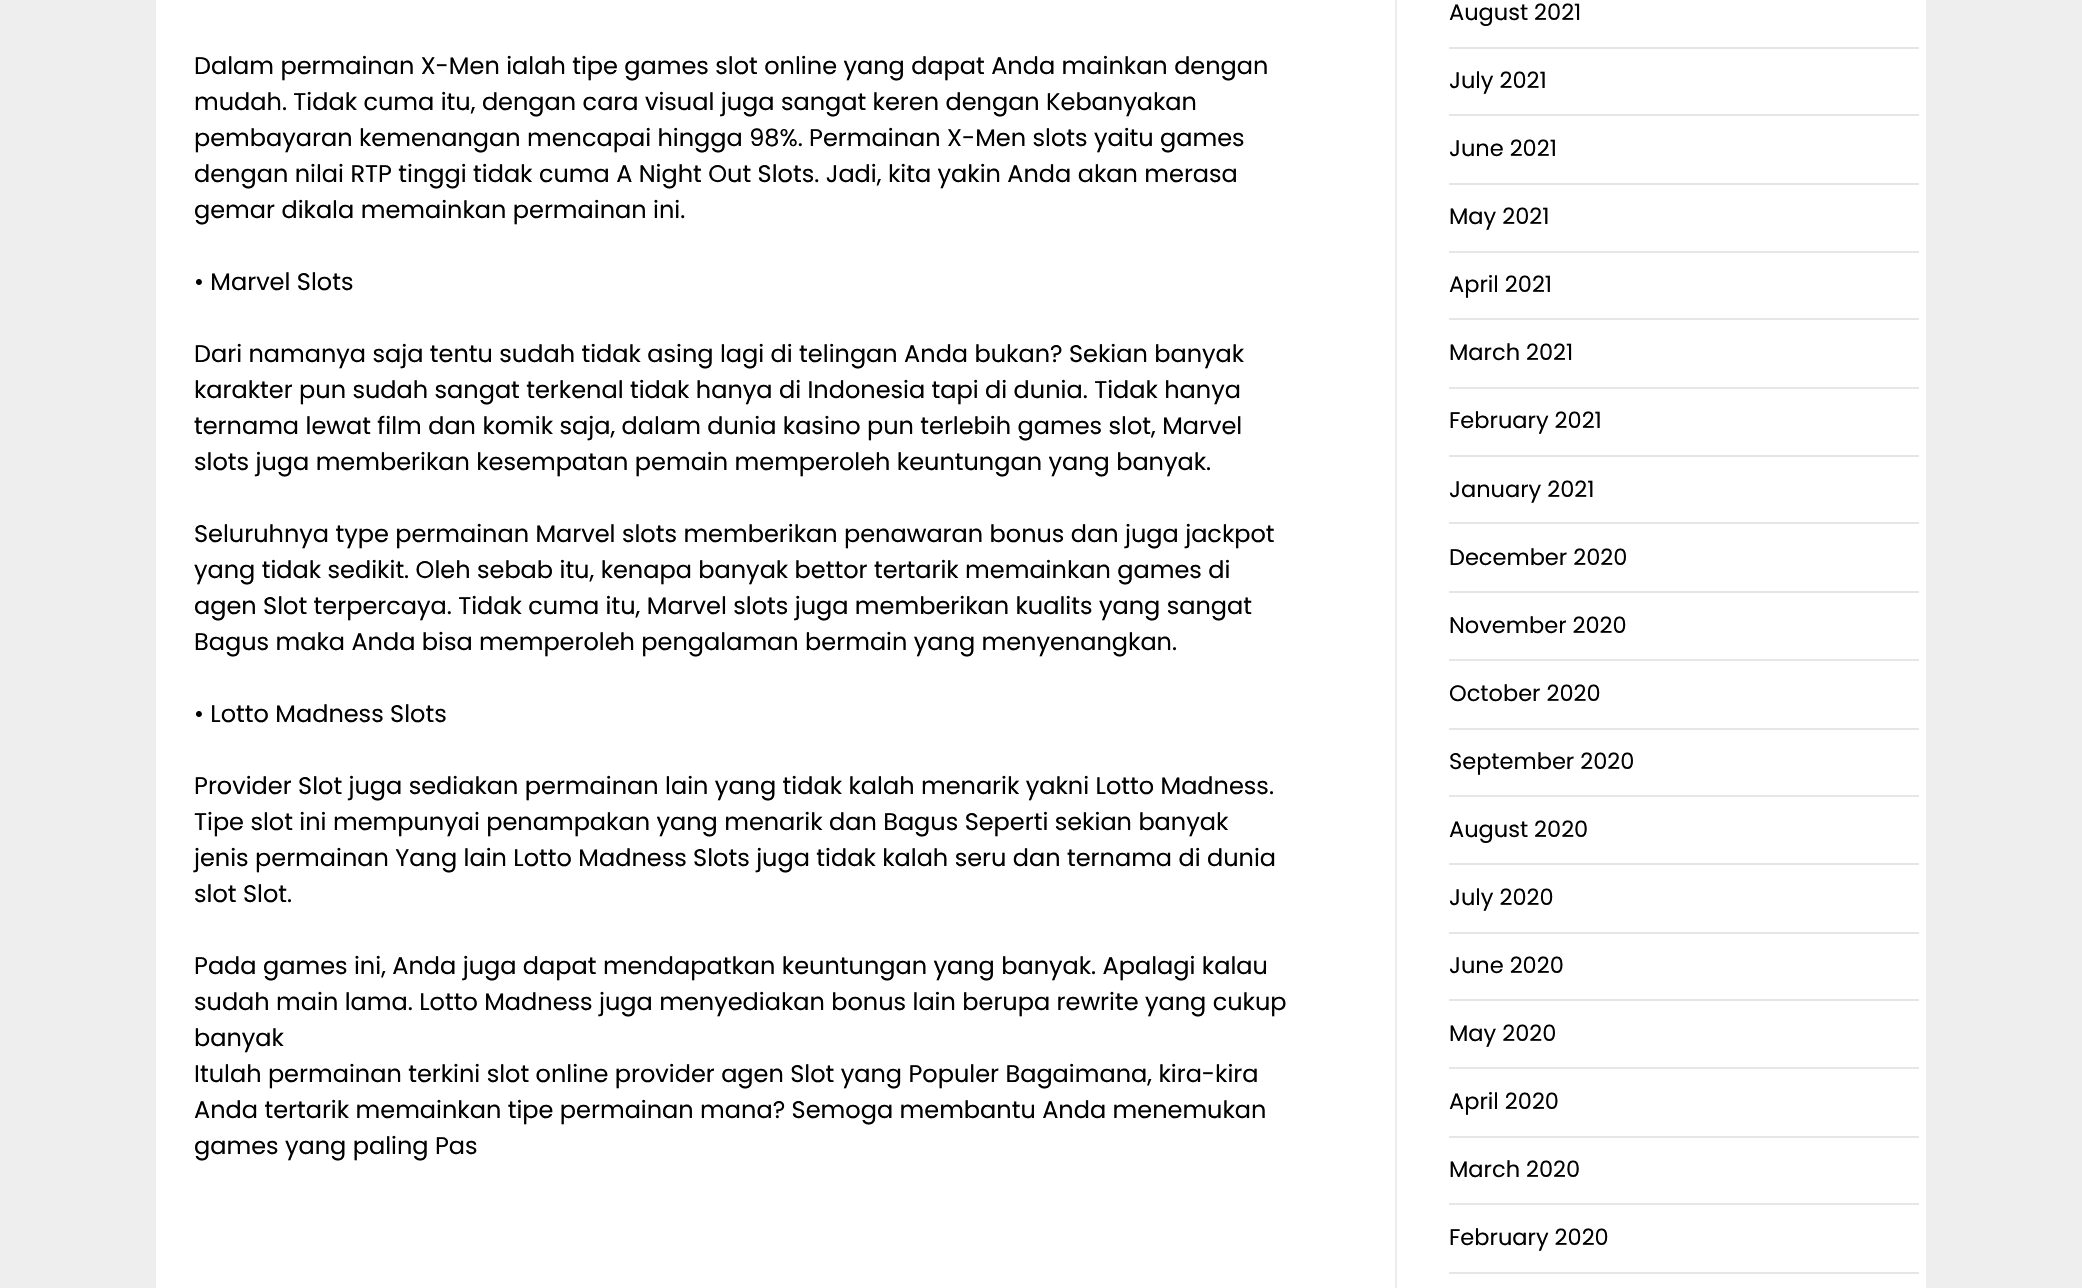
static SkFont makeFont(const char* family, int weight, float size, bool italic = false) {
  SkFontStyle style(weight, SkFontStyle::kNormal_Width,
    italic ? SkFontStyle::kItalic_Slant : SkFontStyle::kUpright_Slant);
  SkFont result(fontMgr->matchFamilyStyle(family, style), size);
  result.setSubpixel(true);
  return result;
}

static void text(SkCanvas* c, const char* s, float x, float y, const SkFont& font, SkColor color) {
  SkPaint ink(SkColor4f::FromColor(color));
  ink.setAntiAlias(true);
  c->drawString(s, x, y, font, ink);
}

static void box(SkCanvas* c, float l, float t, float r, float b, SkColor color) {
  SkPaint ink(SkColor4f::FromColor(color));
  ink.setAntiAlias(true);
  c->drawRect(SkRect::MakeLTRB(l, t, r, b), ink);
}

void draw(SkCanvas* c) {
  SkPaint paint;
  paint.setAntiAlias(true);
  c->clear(0xffeeeeee);
  box(c, 156, 0, 1926, 1288, 0xffffffff);
  SkFont face1 = makeFont("Poppins", 400, 24);
  text(c, "Dalam permainan X-Men ialah tipe games slot online yang dapat Anda mainkan dengan", 194, 74, face1, 0xff000000);
  text(c, "mudah. Tidak cuma itu, dengan cara visual juga sangat keren dengan Kebanyakan", 194, 110, face1, 0xff000000);
  text(c, "pembayaran kemenangan mencapai hingga 98%. Permainan X-Men slots yaitu games", 194, 146, face1, 0xff000000);
  text(c, "dengan nilai RTP tinggi tidak cuma A Night Out Slots. Jadi, kita yakin Anda akan merasa", 194, 182, face1, 0xff000000);
  text(c, "gemar dikala memainkan permainan ini.", 194, 218, face1, 0xff000000);
  text(c, "• Marvel Slots", 194, 290, face1, 0xff000000);
  text(c, "Dari namanya saja tentu sudah tidak asing lagi di telingan Anda bukan? Sekian banyak", 194, 362, face1, 0xff000000);
  text(c, "karakter pun sudah sangat terkenal tidak hanya di Indonesia tapi di dunia. Tidak hanya", 194, 398, face1, 0xff000000);
  text(c, "ternama lewat film dan komik saja, dalam dunia kasino pun terlebih games slot, Marvel", 194, 434, face1, 0xff000000);
  text(c, "slots juga memberikan kesempatan pemain memperoleh keuntungan yang banyak.", 194, 470, face1, 0xff000000);
  text(c, "Seluruhnya type permainan Marvel slots memberikan penawaran bonus dan juga jackpot", 194, 542, face1, 0xff000000);
  text(c, "yang tidak sedikit. Oleh sebab itu, kenapa banyak bettor tertarik memainkan games di", 194, 578, face1, 0xff000000);
  text(c, "agen Slot terpercaya. Tidak cuma itu, Marvel slots juga memberikan kualits yang sangat", 194, 614, face1, 0xff000000);
  text(c, "Bagus maka Anda bisa memperoleh pengalaman bermain yang menyenangkan.", 194, 650, face1, 0xff000000);
  text(c, "• Lotto Madness Slots", 194, 722, face1, 0xff000000);
  text(c, "Provider Slot juga sediakan permainan lain yang tidak kalah menarik yakni Lotto Madness.", 194, 794, face1, 0xff000000);
  text(c, "Tipe slot ini mempunyai penampakan yang menarik dan Bagus Seperti sekian banyak", 194, 830, face1, 0xff000000);
  text(c, "jenis permainan Yang lain Lotto Madness Slots juga tidak kalah seru dan ternama di dunia", 194, 866, face1, 0xff000000);
  text(c, "slot Slot.", 194, 902, face1, 0xff000000);
  text(c, "Pada games ini, Anda juga dapat mendapatkan keuntungan yang banyak. Apalagi kalau", 194, 974, face1, 0xff000000);
  text(c, "sudah main lama. Lotto Madness juga menyediakan bonus lain berupa rewrite yang cukup", 194, 1010, face1, 0xff000000);
  text(c, "banyak", 194, 1046, face1, 0xff000000);
  text(c, "Itulah permainan terkini slot online provider agen Slot yang Populer Bagaimana, kira-kira", 194, 1082, face1, 0xff000000);
  text(c, "Anda tertarik memainkan tipe permainan mana? Semoga membantu Anda menemukan", 194, 1118, face1, 0xff000000);
  text(c, "games yang paling Pas", 194, 1154, face1, 0xff000000);
  box(c, 1395, 0, 1397, 1288, 0xffececec);
  box(c, 1449, 47, 1919, 49, 0xffe6e6e6);
  SkFont face2 = makeFont("Poppins", 400, 22.5f);
  text(c, "August 2021", 1449, 20, face2, 0xff000000);
  box(c, 1449, 114, 1919, 116, 0xffe6e6e6);
  text(c, "July 2021", 1449, 88, face2, 0xff000000);
  box(c, 1449, 183, 1919, 185, 0xffe6e6e6);
  text(c, "June 2021", 1449, 156, face2, 0xff000000);
  box(c, 1449, 251, 1919, 253, 0xffe6e6e6);
  text(c, "May 2021", 1449, 224, face2, 0xff000000);
  box(c, 1449, 318, 1919, 320, 0xffe6e6e6);
  text(c, "April 2021", 1449, 292, face2, 0xff000000);
  box(c, 1449, 387, 1919, 389, 0xffe6e6e6);
  text(c, "March 2021", 1449, 360, face2, 0xff000000);
  box(c, 1449, 455, 1919, 457, 0xffe6e6e6);
  text(c, "February 2021", 1449, 428, face2, 0xff000000);
  box(c, 1449, 522, 1919, 524, 0xffe6e6e6);
  text(c, "January 2021", 1449, 497, face2, 0xff000000);
  box(c, 1449, 591, 1919, 593, 0xffe6e6e6);
  text(c, "December 2020", 1449, 565, face2, 0xff000000);
  box(c, 1449, 659, 1919, 661, 0xffe6e6e6);
  text(c, "November 2020", 1449, 633, face2, 0xff000000);
  box(c, 1449, 728, 1919, 730, 0xffe6e6e6);
  text(c, "October 2020", 1449, 701, face2, 0xff000000);
  box(c, 1449, 795, 1919, 797, 0xffe6e6e6);
  text(c, "September 2020", 1449, 769, face2, 0xff000000);
  box(c, 1449, 863, 1919, 865, 0xffe6e6e6);
  text(c, "August 2020", 1449, 837, face2, 0xff000000);
  box(c, 1449, 932, 1919, 934, 0xffe6e6e6);
  text(c, "July 2020", 1449, 905, face2, 0xff000000);
  box(c, 1449, 999, 1919, 1001, 0xffe6e6e6);
  text(c, "June 2020", 1449, 973, face2, 0xff000000);
  box(c, 1449, 1067, 1919, 1069, 0xffe6e6e6);
  text(c, "May 2020", 1449, 1041, face2, 0xff000000);
  box(c, 1449, 1136, 1919, 1138, 0xffe6e6e6);
  text(c, "April 2020", 1449, 1109, face2, 0xff000000);
  box(c, 1449, 1203, 1919, 1205, 0xffe6e6e6);
  text(c, "March 2020", 1449, 1177, face2, 0xff000000);
  box(c, 1449, 1272, 1919, 1274, 0xffe6e6e6);
  text(c, "February 2020", 1449, 1245, face2, 0xff000000);
}
